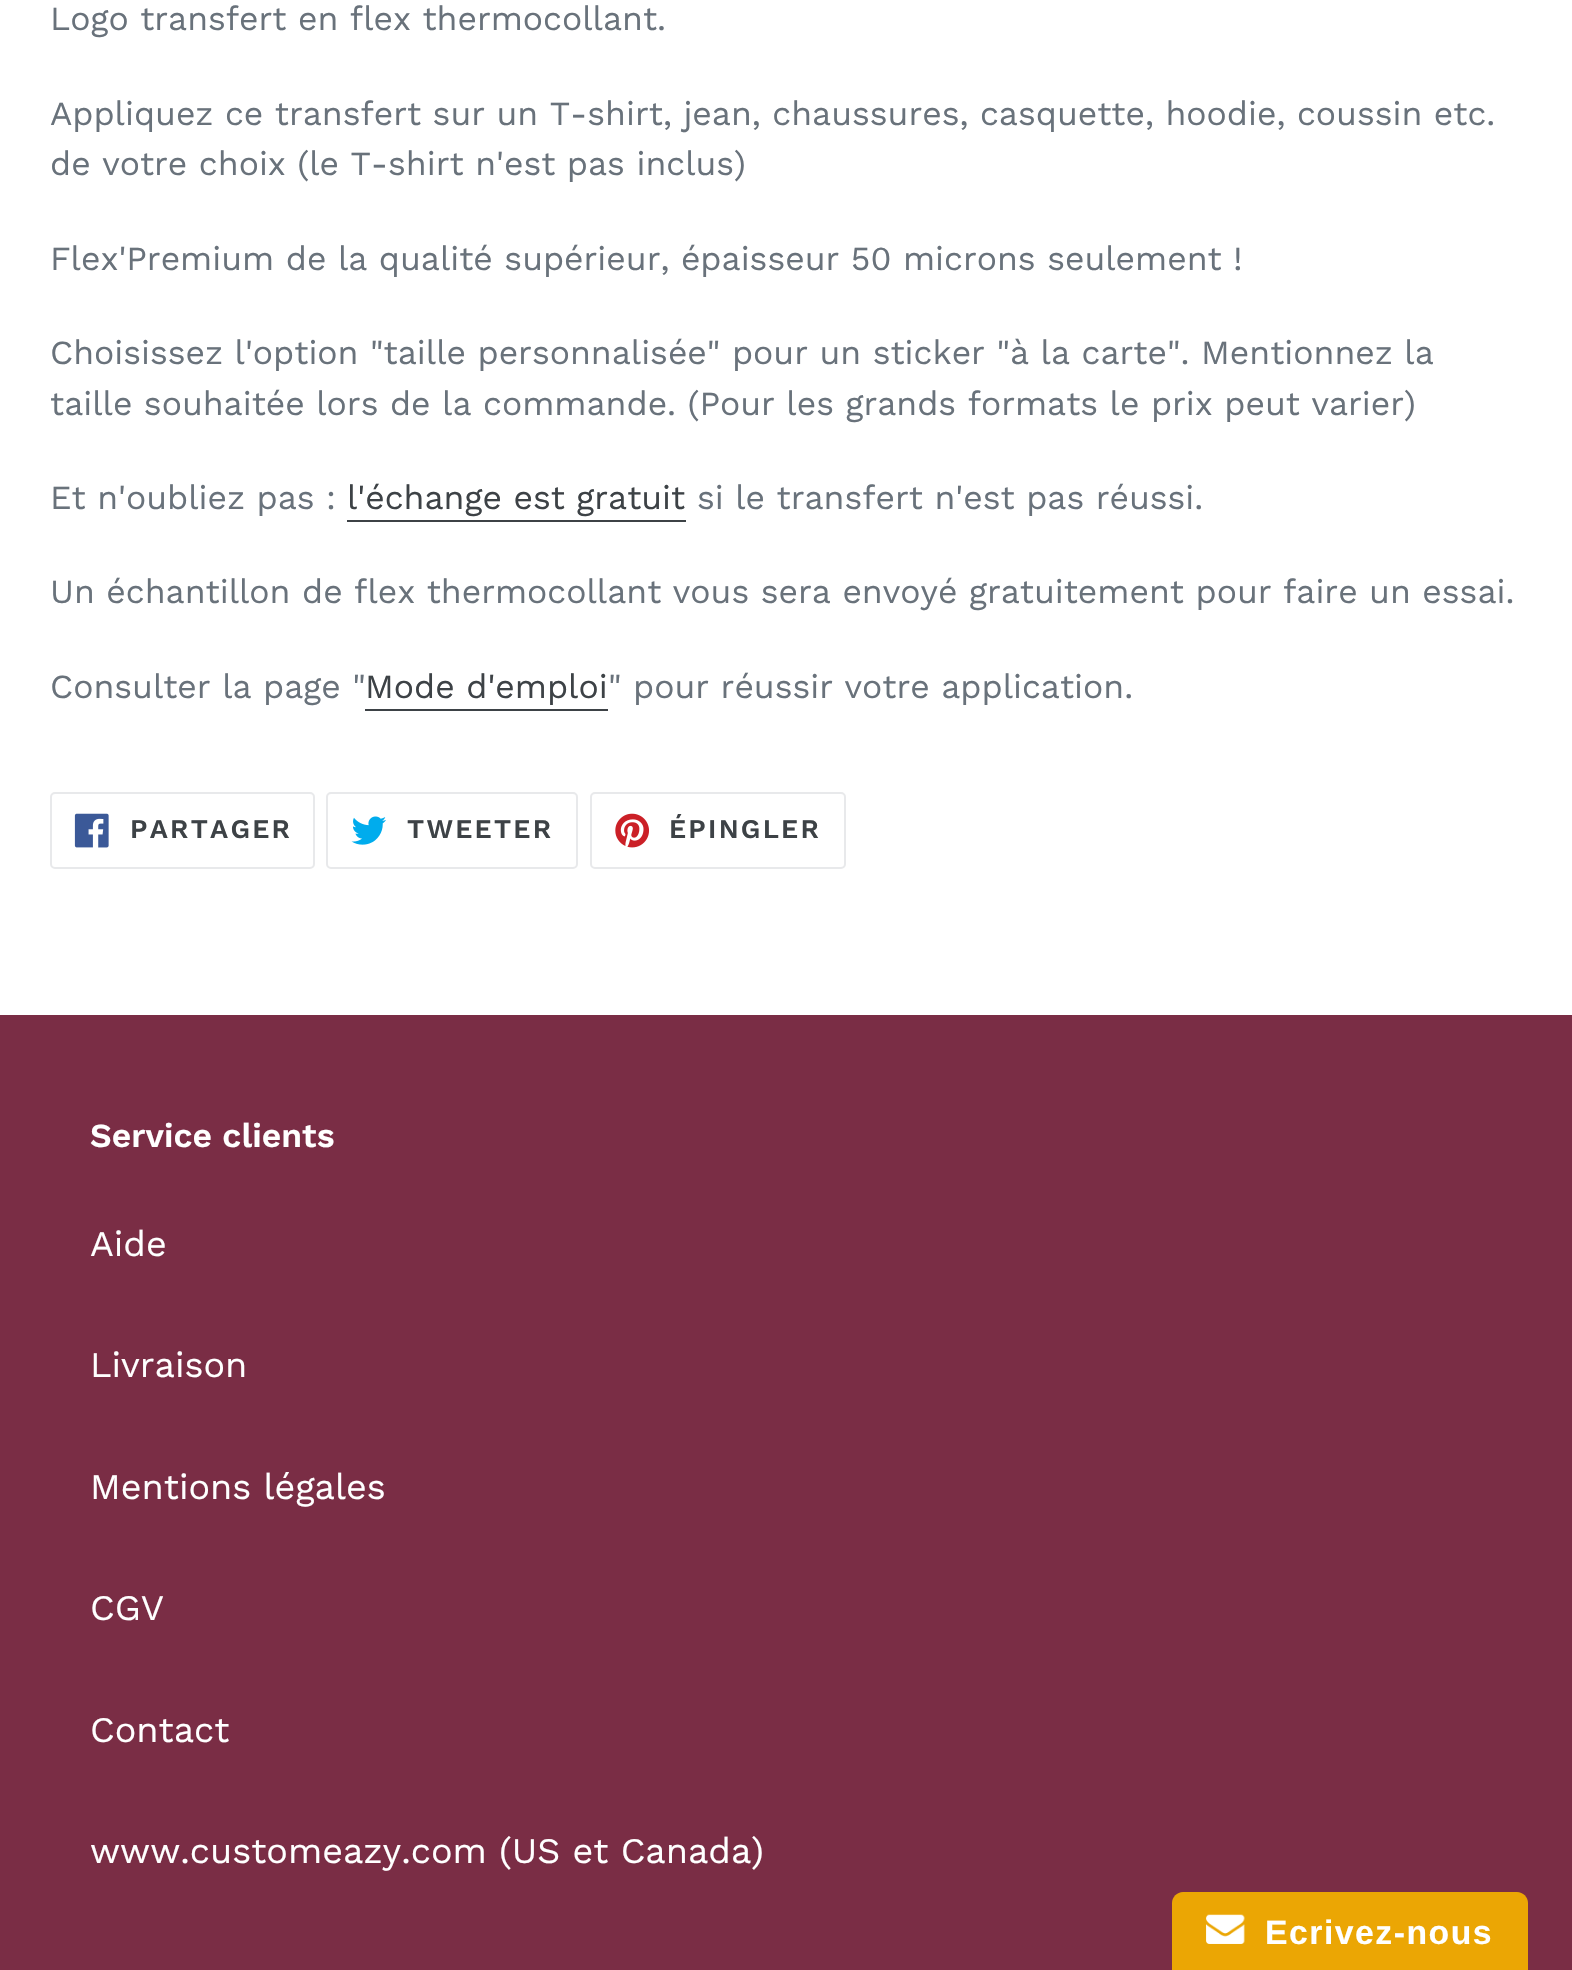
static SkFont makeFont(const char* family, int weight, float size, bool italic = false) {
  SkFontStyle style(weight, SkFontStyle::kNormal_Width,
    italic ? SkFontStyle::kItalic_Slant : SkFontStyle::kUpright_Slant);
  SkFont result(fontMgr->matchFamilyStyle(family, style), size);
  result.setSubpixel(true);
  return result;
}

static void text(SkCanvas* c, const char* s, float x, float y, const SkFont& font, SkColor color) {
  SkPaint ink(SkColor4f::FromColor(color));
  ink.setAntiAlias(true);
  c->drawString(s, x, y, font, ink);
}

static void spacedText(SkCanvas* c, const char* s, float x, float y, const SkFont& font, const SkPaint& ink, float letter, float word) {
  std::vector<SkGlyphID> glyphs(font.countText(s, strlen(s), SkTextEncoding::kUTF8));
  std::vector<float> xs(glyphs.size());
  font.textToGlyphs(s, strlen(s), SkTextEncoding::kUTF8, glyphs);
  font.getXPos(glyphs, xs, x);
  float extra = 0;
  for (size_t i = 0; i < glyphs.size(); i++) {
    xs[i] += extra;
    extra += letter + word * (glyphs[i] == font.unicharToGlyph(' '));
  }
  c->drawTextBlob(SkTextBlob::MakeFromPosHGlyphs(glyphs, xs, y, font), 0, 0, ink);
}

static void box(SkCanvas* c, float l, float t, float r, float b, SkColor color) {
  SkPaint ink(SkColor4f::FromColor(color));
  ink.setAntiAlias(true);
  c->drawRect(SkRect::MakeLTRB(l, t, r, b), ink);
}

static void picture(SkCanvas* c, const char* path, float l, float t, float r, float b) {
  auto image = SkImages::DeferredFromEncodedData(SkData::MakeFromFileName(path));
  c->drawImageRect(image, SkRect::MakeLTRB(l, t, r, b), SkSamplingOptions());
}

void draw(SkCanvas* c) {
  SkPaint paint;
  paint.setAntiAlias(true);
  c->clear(0xffffffff);
  SkFont face1 = makeFont("Work Sans", 400, 33.75f);
  text(c, "Logo transfert en flex thermocollant.", 50, 30, face1, 0xff69727b);
  text(c, "Appliquez ce transfert sur un T-shirt, jean, chaussures, casquette, hoodie, coussin etc.", 50, 125, face1, 0xff69727b);
  text(c, "de votre choix (le T-shirt n'est pas inclus)", 50, 175, face1, 0xff69727b);
  text(c, "Flex'Premium de la qualité supérieur, épaisseur 50 microns seulement !", 50, 270, face1, 0xff69727b);
  text(c, "Choisissez l'option \"taille personnalisée\" pour un sticker \"à la carte\". Mentionnez la", 50, 364, face1, 0xff69727b);
  text(c, "taille souhaitée lors de la commande. (Pour les grands formats le prix peut varier)", 50, 415, face1, 0xff69727b);
  text(c, "Et n'oubliez pas :", 50, 509, face1, 0xff69727b);
  text(c, "l'échange est gratuit", 347, 509, face1, 0xff3d4246);
  box(c, 347, 520, 686, 522, 0xff3d4246);
  text(c, "si le transfert n'est pas réussi.", 697, 509, face1, 0xff69727b);
  text(c, "Un échantillon de flex thermocollant vous sera envoyé gratuitement pour faire un essai.", 50, 603, face1, 0xff69727b);
  text(c, "Consulter la page \"", 50, 698, face1, 0xff69727b);
  text(c, "Mode d'emploi", 365, 698, face1, 0xff3d4246);
  box(c, 365, 709, 608, 711, 0xff3d4246);
  text(c, "\" pour réussir votre application.", 608, 698, face1, 0xff69727b);
  paint.setStyle(SkPaint::kStroke_Style);
  paint.setStrokeWidth(2);
  paint.setColor(0xffe8e9eb);
  c->drawRoundRect(SkRect::MakeLTRB(51, 793, 314, 868), 4, 4, paint);
  picture(c, "img_01.png", 74, 813, 109, 848);
  SkFont face2 = makeFont("Work Sans", 600, 27);
  paint.setStyle(SkPaint::kFill_Style);
  paint.setColor(0xff3d4246);
  spacedText(c, "PARTAGER", 130, 838, face2, paint, 2.25f, 0);
  paint.setStyle(SkPaint::kStroke_Style);
  paint.setColor(0xffe8e9eb);
  c->drawRoundRect(SkRect::MakeLTRB(327, 793, 577, 868), 4, 4, paint);
  picture(c, "img_02.png", 351, 816, 386, 845);
  paint.setStyle(SkPaint::kFill_Style);
  paint.setColor(0xff3d4246);
  spacedText(c, "TWEETER", 407, 838, face2, paint, 2.25f, 0);
  paint.setStyle(SkPaint::kStroke_Style);
  paint.setColor(0xffe8e9eb);
  c->drawRoundRect(SkRect::MakeLTRB(591, 793, 845, 868), 4, 4, paint);
  picture(c, "img_03.png", 615, 813, 649, 848);
  paint.setStyle(SkPaint::kFill_Style);
  paint.setColor(0xff3d4246);
  spacedText(c, "ÉPINGLER", 669, 838, face2, paint, 2.25f, 0);
  box(c, 0, 1015, 1572, 1970, 0xff7a2d45);
  SkFont face3 = makeFont("Work Sans", 600, 33.75f);
  text(c, "Service clients", 90, 1147, face3, 0xffffffff);
  SkFont face4 = makeFont("Work Sans", 400, 36);
  text(c, "Aide", 90, 1256, face4, 0xffffffff);
  text(c, "Livraison", 90, 1377, face4, 0xffffffff);
  text(c, "Mentions légales", 90, 1499, face4, 0xffffffff);
  text(c, "CGV", 90, 1620, face4, 0xffffffff);
  text(c, "Contact", 90, 1742, face4, 0xffffffff);
  text(c, "www.customeazy.com (US et Canada)", 90, 1863, face4, 0xffffffff);
  paint.setColor(0xffeba604);
  c->drawPath(SkPathBuilder().moveTo(1183, 1892).lineTo(1517, 1892).cubicTo(1523, 1892, 1528, 1897, 1528, 1903).lineTo(1528, 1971).lineTo(1172, 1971).lineTo(1172, 1903).cubicTo(1172, 1897, 1177, 1892, 1183, 1892).close().detach(), paint);
  picture(c, "img_04.png", 1206, 1914, 1245, 1944);
  SkFont face5 = makeFont("Liberation Sans", 700, 33.75f);
  paint.setColor(0xffffffff);
  spacedText(c, "Ecrivez-nous", 1265, 1944, face5, paint, 1.5f, 0);
}
